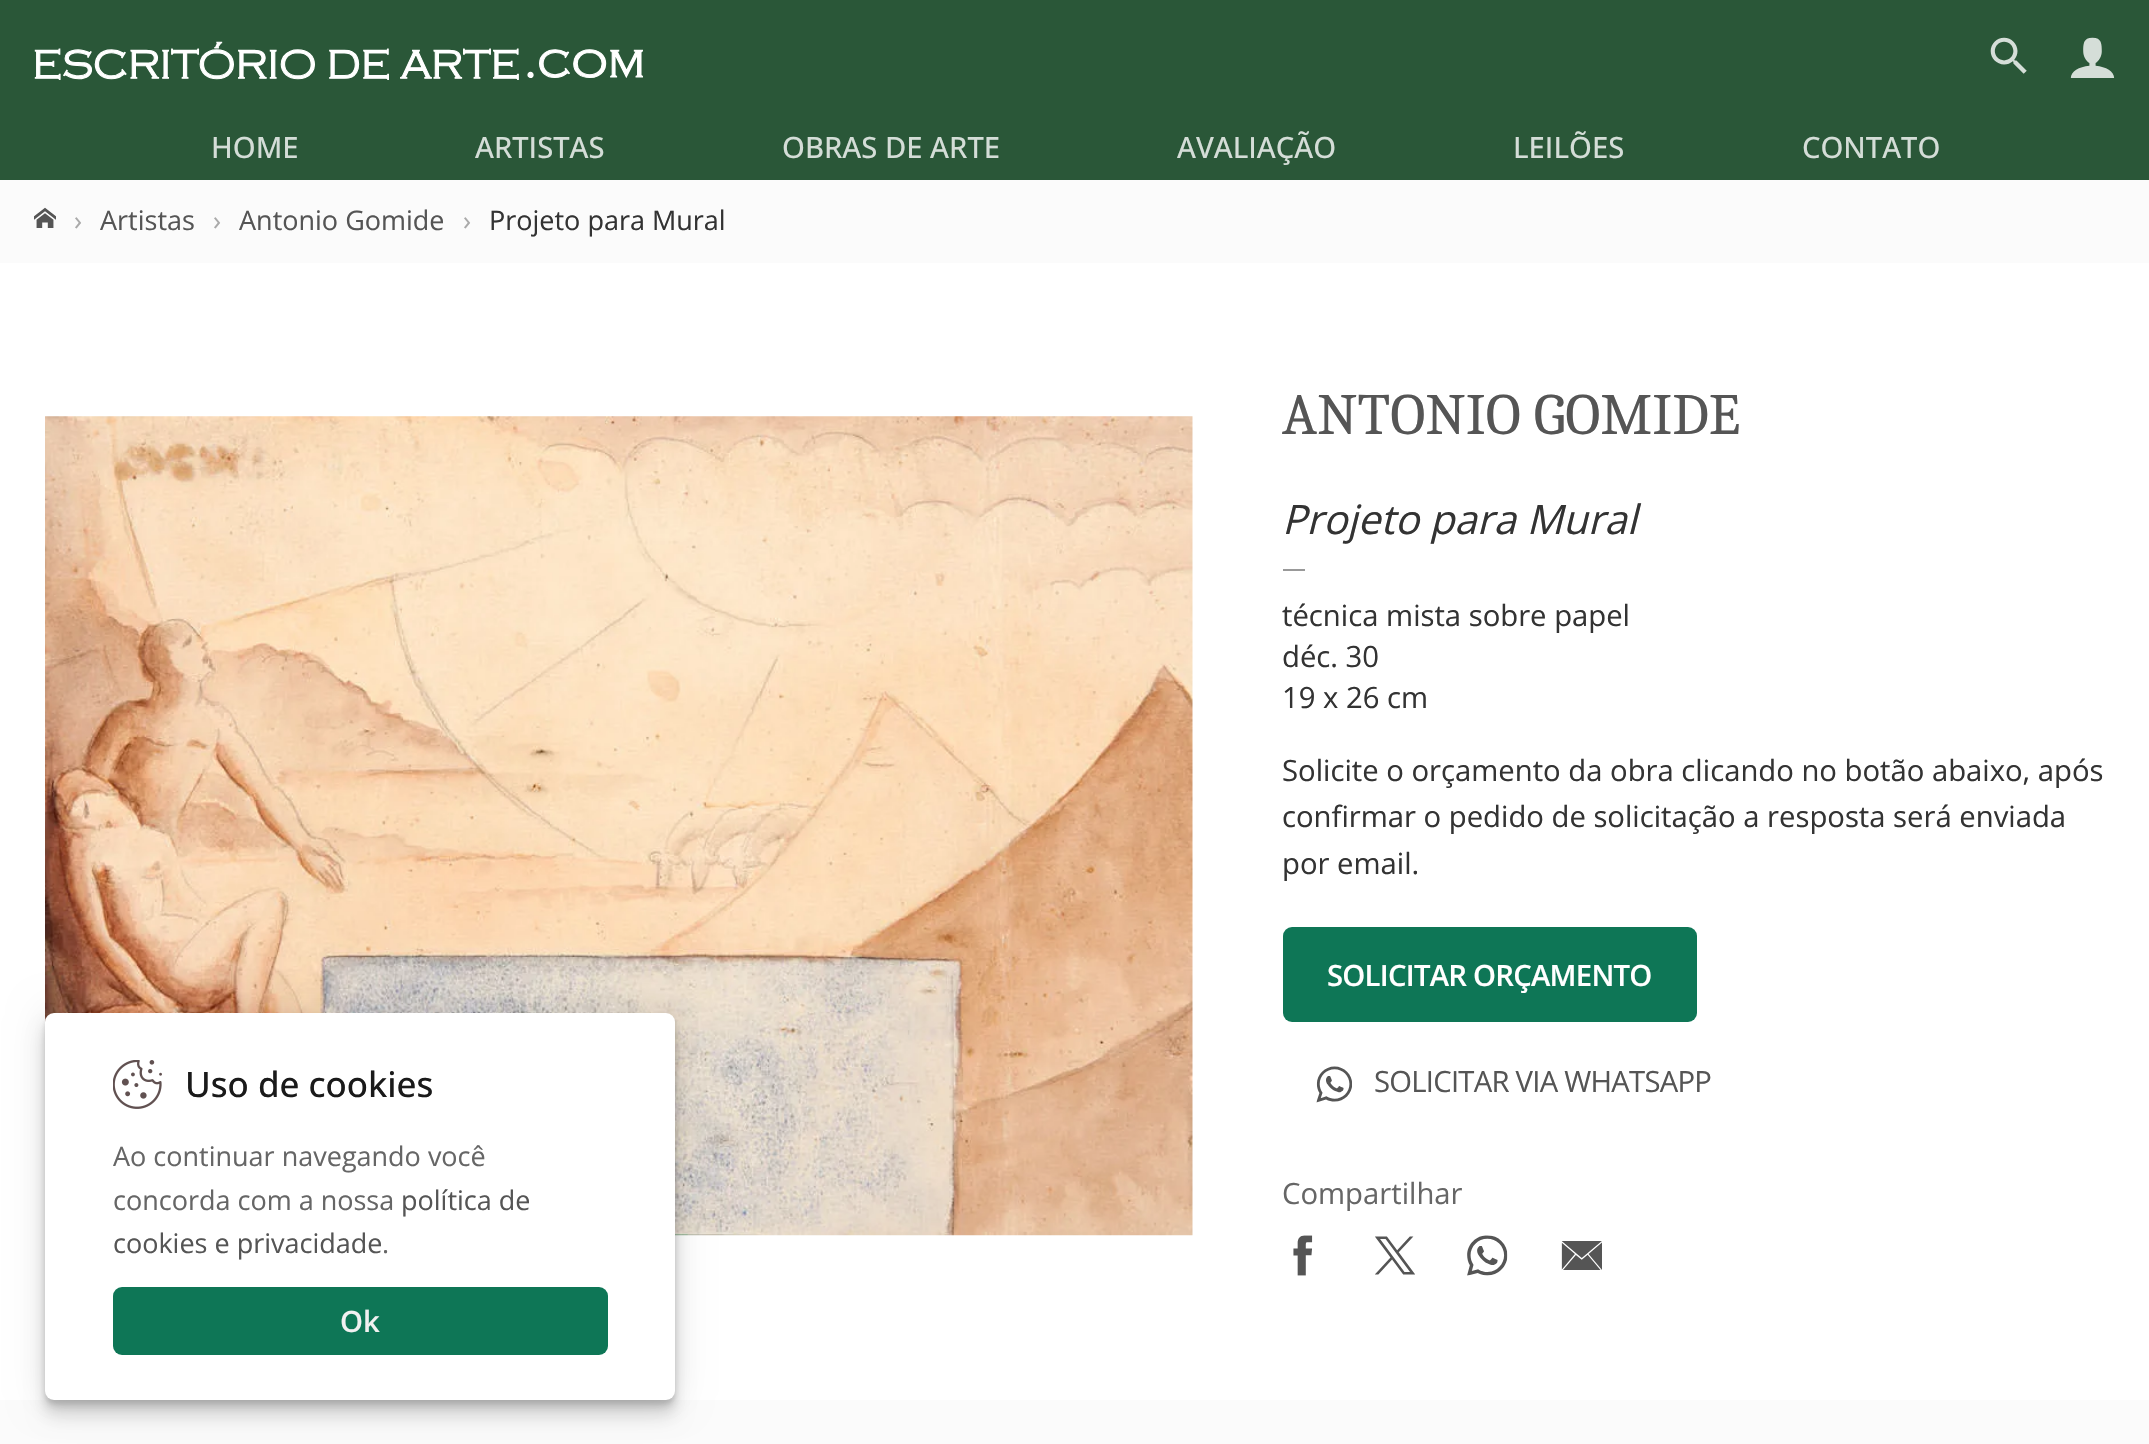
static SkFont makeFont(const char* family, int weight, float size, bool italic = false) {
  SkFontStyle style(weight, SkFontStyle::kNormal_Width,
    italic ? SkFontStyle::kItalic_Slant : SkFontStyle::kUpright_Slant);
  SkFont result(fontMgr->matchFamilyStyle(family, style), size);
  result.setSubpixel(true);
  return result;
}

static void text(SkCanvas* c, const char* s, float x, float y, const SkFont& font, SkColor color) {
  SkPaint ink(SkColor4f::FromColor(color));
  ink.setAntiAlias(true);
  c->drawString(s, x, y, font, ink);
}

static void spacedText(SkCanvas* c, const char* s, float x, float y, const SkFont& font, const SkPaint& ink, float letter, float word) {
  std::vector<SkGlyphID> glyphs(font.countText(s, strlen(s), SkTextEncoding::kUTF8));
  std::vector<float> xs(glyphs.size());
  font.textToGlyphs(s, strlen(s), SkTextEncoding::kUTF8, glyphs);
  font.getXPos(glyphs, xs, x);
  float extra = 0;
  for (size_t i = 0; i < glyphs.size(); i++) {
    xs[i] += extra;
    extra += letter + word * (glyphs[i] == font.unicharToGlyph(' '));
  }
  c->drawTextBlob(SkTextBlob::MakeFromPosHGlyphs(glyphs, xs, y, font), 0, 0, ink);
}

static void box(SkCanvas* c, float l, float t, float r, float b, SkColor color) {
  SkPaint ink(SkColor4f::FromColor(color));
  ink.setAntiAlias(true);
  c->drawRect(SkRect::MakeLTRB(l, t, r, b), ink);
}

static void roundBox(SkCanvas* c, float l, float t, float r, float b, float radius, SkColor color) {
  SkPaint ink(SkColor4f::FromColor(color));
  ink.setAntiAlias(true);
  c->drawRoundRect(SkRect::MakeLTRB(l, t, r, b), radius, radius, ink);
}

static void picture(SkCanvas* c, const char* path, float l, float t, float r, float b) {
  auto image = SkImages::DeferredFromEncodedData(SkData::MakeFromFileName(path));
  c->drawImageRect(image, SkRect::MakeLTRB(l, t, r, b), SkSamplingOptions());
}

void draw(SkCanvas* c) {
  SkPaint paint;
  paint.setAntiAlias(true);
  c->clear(0xfffbfbfb);
  box(c, 0, 0, 2149, 180, 0xff2a5738);
  picture(c, "img_01.png", 34, 41, 643, 80);
  picture(c, "img_02.png", 1990, 37, 2027, 74);
  picture(c, "img_03.png", 2070, 37, 2115, 78);
  SkFont face1 = makeFont("Open Sans", 500, 29.25f);
  text(c, "HOME", 211, 158, face1, 0xffd4ddd7);
  text(c, "ARTISTAS", 475, 158, face1, 0xffd4ddd7);
  text(c, "OBRAS DE ARTE", 782, 158, face1, 0xffd4ddd7);
  text(c, "AVALIAÇÃO", 1177, 158, face1, 0xffd4ddd7);
  text(c, "LEILÕES", 1513, 158, face1, 0xffd4ddd7);
  text(c, "CONTATO", 1802, 158, face1, 0xffd4ddd7);
  picture(c, "img_04.png", 34, 207, 56, 228);
  SkFont face2 = makeFont("Open Sans", 400, 27);
  text(c, "›", 74, 230, face2, 0xffaaaaaa);
  text(c, "Artistas", 100, 230, face2, 0xff555555);
  text(c, "›", 213, 230, face2, 0xffaaaaaa);
  text(c, "Antonio Gomide", 239, 230, face2, 0xff555555);
  text(c, "›", 463, 230, face2, 0xffaaaaaa);
  text(c, "Projeto para Mural", 489, 230, face2, 0xff333333);
  box(c, 0, 263, 2149, 1400, 0xffffffff);
  picture(c, "img_05.png", 45, 416, 1193, 1236);
  SkFont face3 = makeFont("Caladea", 400, 58.5f);
  text(c, "ANTONIO GOMIDE", 1282, 434, face3, 0xff555555);
  SkFont face4 = makeFont("Open Sans", 400, 40.5f, true);
  text(c, "Projeto para Mural", 1282, 534, face4, 0xff333333);
  box(c, 1283, 569, 1305, 571, 0xff999999);
  SkFont face5 = makeFont("Open Sans", 400, 29.25f);
  text(c, "técnica mista sobre papel", 1282, 626, face5, 0xff333333);
  text(c, "déc. 30", 1282, 667, face5, 0xff333333);
  text(c, "19 x 26 cm", 1282, 708, face5, 0xff333333);
  text(c, "Solicite o orçamento da obra clicando no botão abaixo, após", 1282, 781, face5, 0xff333333);
  text(c, "confirmar o pedido de solicitação a resposta será enviada", 1282, 827, face5, 0xff333333);
  text(c, "por email.", 1282, 874, face5, 0xff333333);
  roundBox(c, 1283, 927, 1697, 1022, 9, 0xff0e7656);
  SkFont face6 = makeFont("Open Sans", 600, 29.25f);
  paint.setColor(0xffffffff);
  spacedText(c, "SOLICITAR ORÇAMENTO", 1327, 986, face6, paint, -0.75f, 0);
  picture(c, "img_06.png", 1316, 1066, 1352, 1103);
  paint.setColor(0xff555555);
  spacedText(c, "SOLICITAR VIA WHATSAPP", 1374, 1092, face5, paint, -0.75f, 0);
  text(c, "Compartilhar", 1282, 1204, face5, 0xff666666);
  picture(c, "img_07.png", 1293, 1235, 1313, 1276);
  picture(c, "img_08.png", 1375, 1236, 1415, 1275);
  picture(c, "img_09.png", 1467, 1235, 1508, 1276);
  picture(c, "img_10.png", 1561, 1241, 1602, 1270);
  paint.setColor(0x1a000000);
  paint.setMaskFilter(SkMaskFilter::MakeBlur(kNormal_SkBlurStyle, 18));
  c->drawRoundRect(SkRect::MakeLTRB(45, 1013, 675, 1400), 9, 9, paint);
  paint.setMaskFilter(nullptr);
  paint.setMaskFilter(SkMaskFilter::MakeBlur(kNormal_SkBlurStyle, 9));
  c->drawRoundRect(SkRect::MakeLTRB(45, 1031, 675, 1418), 9, 9, paint);
  paint.setMaskFilter(nullptr);
  paint.setMaskFilter(SkMaskFilter::MakeBlur(kNormal_SkBlurStyle, 4.5f));
  c->drawRoundRect(SkRect::MakeLTRB(45, 1022, 675, 1409), 9, 9, paint);
  paint.setMaskFilter(nullptr);
  paint.setMaskFilter(SkMaskFilter::MakeBlur(kNormal_SkBlurStyle, 2));
  c->drawRoundRect(SkRect::MakeLTRB(45, 1017, 675, 1404), 9, 9, paint);
  paint.setMaskFilter(nullptr);
  roundBox(c, 45, 1013, 675, 1400, 9, 0xffffffff);
  picture(c, "img_11.png", 113, 1060, 162, 1109);
  SkFont face7 = makeFont("Open Sans", 500, 35);
  text(c, "Uso de cookies", 185, 1097, face7, 0xff1a1a1a);
  text(c, "Ao continuar navegando você", 113, 1166, face2, 0xff666666);
  text(c, "concorda com a nossa", 113, 1210, face2, 0xff666666);
  text(c, "política de", 401, 1210, face2, 0xff555555);
  text(c, "cookies e privacidade", 113, 1253, face2, 0xff555555);
  text(c, ".", 382, 1253, face2, 0xff666666);
  roundBox(c, 113, 1287, 608, 1355, 9, 0xff0e7656);
  text(c, "Ok", 340, 1332, face6, 0xfff1f1f1);
}
